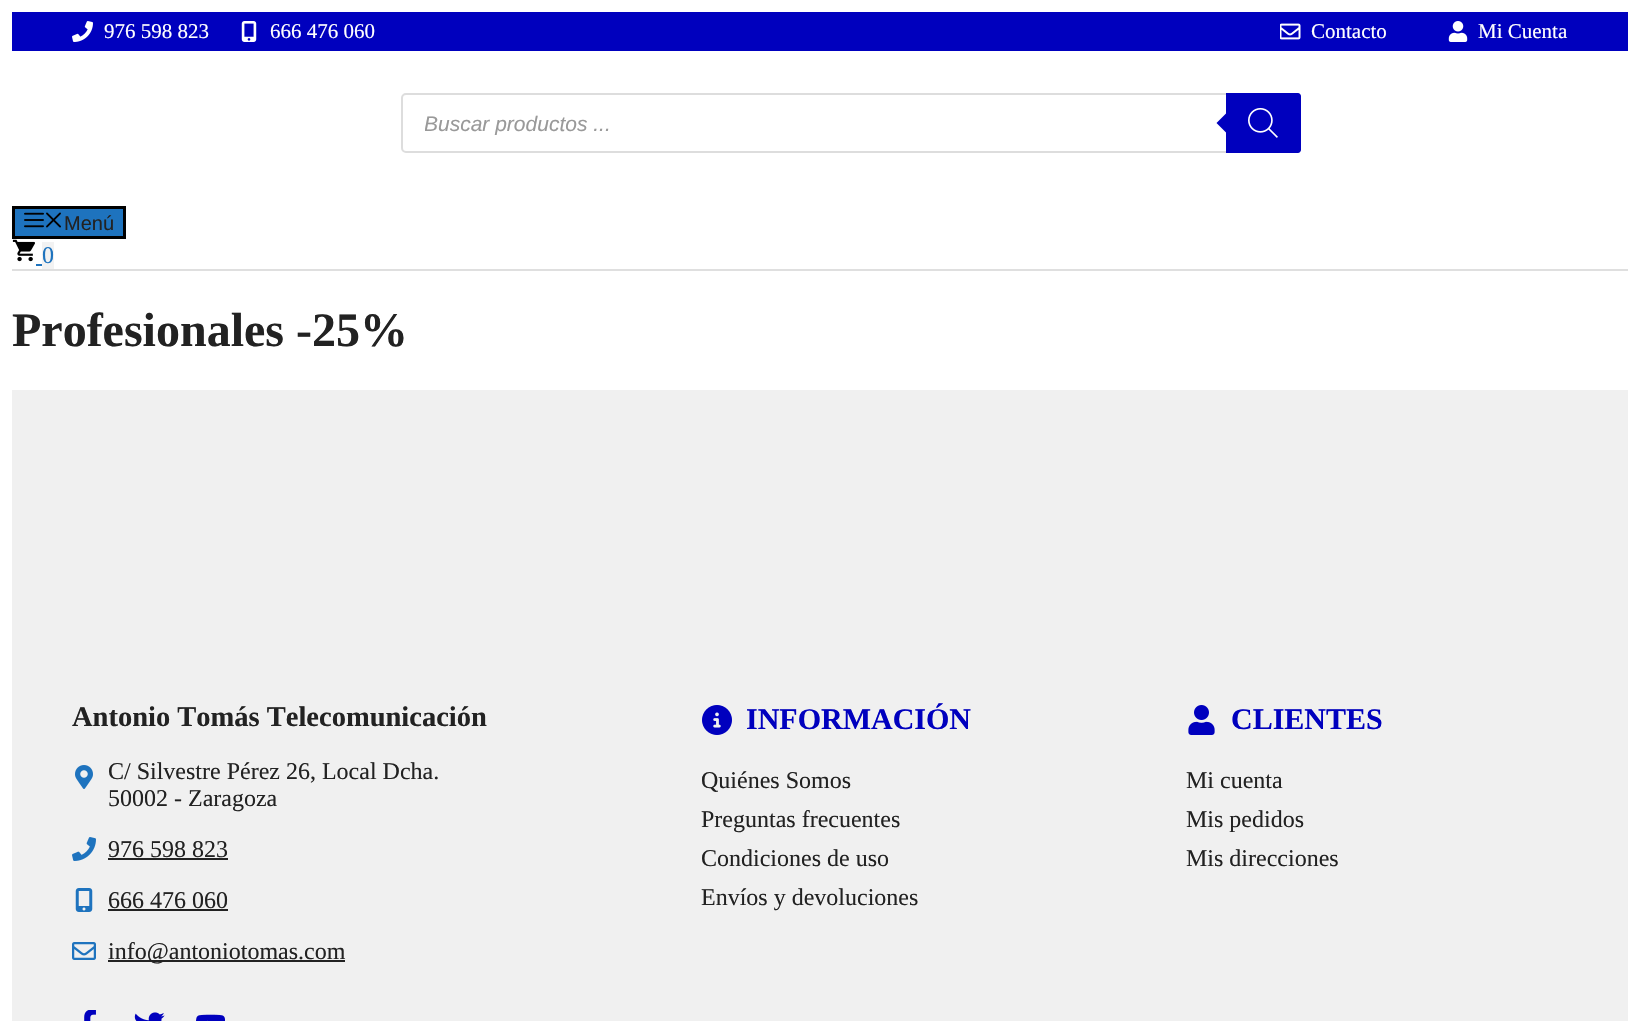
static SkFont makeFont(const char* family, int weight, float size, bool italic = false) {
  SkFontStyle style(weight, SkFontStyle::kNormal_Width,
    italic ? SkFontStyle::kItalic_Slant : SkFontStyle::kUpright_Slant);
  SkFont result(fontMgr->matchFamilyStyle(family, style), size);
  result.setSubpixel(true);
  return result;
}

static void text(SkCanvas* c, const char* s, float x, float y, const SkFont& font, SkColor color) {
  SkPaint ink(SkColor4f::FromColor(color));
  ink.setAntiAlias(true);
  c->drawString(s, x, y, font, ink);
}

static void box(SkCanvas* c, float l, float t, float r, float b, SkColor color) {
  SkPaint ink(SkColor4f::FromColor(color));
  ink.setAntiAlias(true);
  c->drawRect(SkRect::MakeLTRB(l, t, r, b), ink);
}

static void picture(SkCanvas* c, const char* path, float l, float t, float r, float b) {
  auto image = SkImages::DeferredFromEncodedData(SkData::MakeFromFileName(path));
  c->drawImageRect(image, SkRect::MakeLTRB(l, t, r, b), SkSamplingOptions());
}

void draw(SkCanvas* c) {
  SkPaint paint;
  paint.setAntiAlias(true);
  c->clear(0xffffffff);
  box(c, 12, 12, 1628, 51, 0xff0000be);
  picture(c, "img_01.png", 72, 21, 93, 42);
  SkFont face1 = makeFont("Liberation Serif", 400, 21);
  text(c, "976 598 823", 104, 38, face1, 0xffffffff);
  picture(c, "img_02.png", 241, 21, 257, 42);
  text(c, "666 476 060", 270, 38, face1, 0xffffffff);
  picture(c, "img_03.png", 1280, 23, 1301, 40);
  text(c, "Contacto", 1311, 38, face1, 0xffffffff);
  picture(c, "img_04.png", 1448, 21, 1468, 42);
  text(c, "Mi Cuenta", 1478, 38, face1, 0xffffffff);
  box(c, 12, 269, 1628, 271, 0xffdfdfdf);
  paint.setStyle(SkPaint::kStroke_Style);
  paint.setStrokeWidth(2);
  paint.setColor(0xffdddddd);
  c->drawRoundRect(SkRect::MakeLTRB(402, 94, 1300, 152), 4, 4, paint);
  c->save();
  c->clipRect(SkRect::MakeLTRB(425, 111, 1277, 135));
  SkFont face2 = makeFont("Liberation Sans", 400, 21, true);
  text(c, "Buscar productos ...", 424, 131, face2, 0xff999999);
  c->restore();
  paint.setStyle(SkPaint::kFill_Style);
  paint.setColor(0xff0000be);
  c->drawPath(SkPathBuilder().moveTo(1226, 93).lineTo(1298, 93).cubicTo(1299.5f, 93, 1301, 94.5f, 1301, 96).lineTo(1301, 150).cubicTo(1301, 151.5f, 1299.5f, 153, 1298, 153).lineTo(1226, 153).close().detach(), paint);
  c->drawPath(SkPathBuilder().moveTo(1228.5f, 111).lineTo(1228.5f, 135).lineTo(1216.5f, 123).close().detach(), paint);
  picture(c, "img_05.png", 1248, 107, 1278, 138);
  paint.setColor(0xff1e73be);
  c->drawRect(SkRect::MakeLTRB(13.5f, 207.5f, 124.5f, 237.5f), paint);
  paint.setStyle(SkPaint::kStroke_Style);
  paint.setStrokeWidth(3);
  paint.setColor(0xff000000);
  c->drawRect(SkRect::MakeLTRB(13.5f, 207.5f, 124.5f, 237.5f), paint);
  picture(c, "img_06.png", 24, 212, 44, 228);
  picture(c, "img_07.png", 46, 212, 61, 228);
  SkFont face3 = makeFont("Liberation Sans", 400, 20);
  text(c, "Menú", 64, 230, face3, 0xff222222);
  picture(c, "img_08.png", 12, 239, 35, 262);
  box(c, 42, 242, 54, 269, 0xfff2f2f2);
  SkFont face4 = makeFont("Liberation Serif", 400, 24);
  text(c, "0", 42, 263, face4, 0xff1e73be);
  box(c, 36, 264, 42, 266, 0xff1e73be);
  SkFont face5 = makeFont("Liberation Serif", 700, 48);
  text(c, "Profesionales -25%", 12, 346, face5, 0xff222222);
  box(c, 12, 390, 1628, 1021, 0xfff0f0f0);
  SkFont face6 = makeFont("Liberation Serif", 700, 28.5f);
  text(c, "Antonio Tomás Telecomunicación", 72, 726, face6, 0xff222222);
  picture(c, "img_09.png", 75, 765, 93, 789);
  text(c, "C/ Silvestre Pérez 26, Local Dcha.", 108, 779, face4, 0xff222222);
  text(c, "50002 - Zaragoza", 108, 806, face4, 0xff222222);
  picture(c, "img_10.png", 72, 837, 96, 861);
  text(c, "976 598 823", 108, 857, face4, 0xff222222);
  box(c, 108, 858, 228, 860, 0xff222222);
  picture(c, "img_11.png", 75, 888, 93, 912);
  text(c, "666 476 060", 108, 908, face4, 0xff222222);
  box(c, 108, 909, 228, 911, 0xff222222);
  picture(c, "img_12.png", 72, 942, 96, 960);
  box(c, 108, 960, 345, 962, 0xff222222);
  text(c, "info@antoniotomas.com", 108, 959, face4, 0xff222222);
  picture(c, "img_13.png", 84, 1010, 96, 1021);
  picture(c, "img_14.png", 134, 1012, 165, 1021);
  picture(c, "img_15.png", 196, 1014, 225, 1021);
  picture(c, "img_16.png", 702, 705, 732, 735);
  SkFont face7 = makeFont("Liberation Serif", 700, 30);
  text(c, "INFORMACIÓN", 746, 729, face7, 0xff0000be);
  text(c, "Quiénes Somos", 701, 788, face4, 0xff222222);
  text(c, "Preguntas frecuentes", 701, 827, face4, 0xff222222);
  text(c, "Condiciones de uso", 701, 866, face4, 0xff222222);
  text(c, "Envíos y devoluciones", 701, 905, face4, 0xff222222);
  picture(c, "img_17.png", 1188, 705, 1215, 735);
  text(c, "CLIENTES", 1231, 729, face7, 0xff0000be);
  text(c, "Mi cuenta", 1186, 788, face4, 0xff222222);
  text(c, "Mis pedidos", 1186, 827, face4, 0xff222222);
  text(c, "Mis direcciones", 1186, 866, face4, 0xff222222);
}
